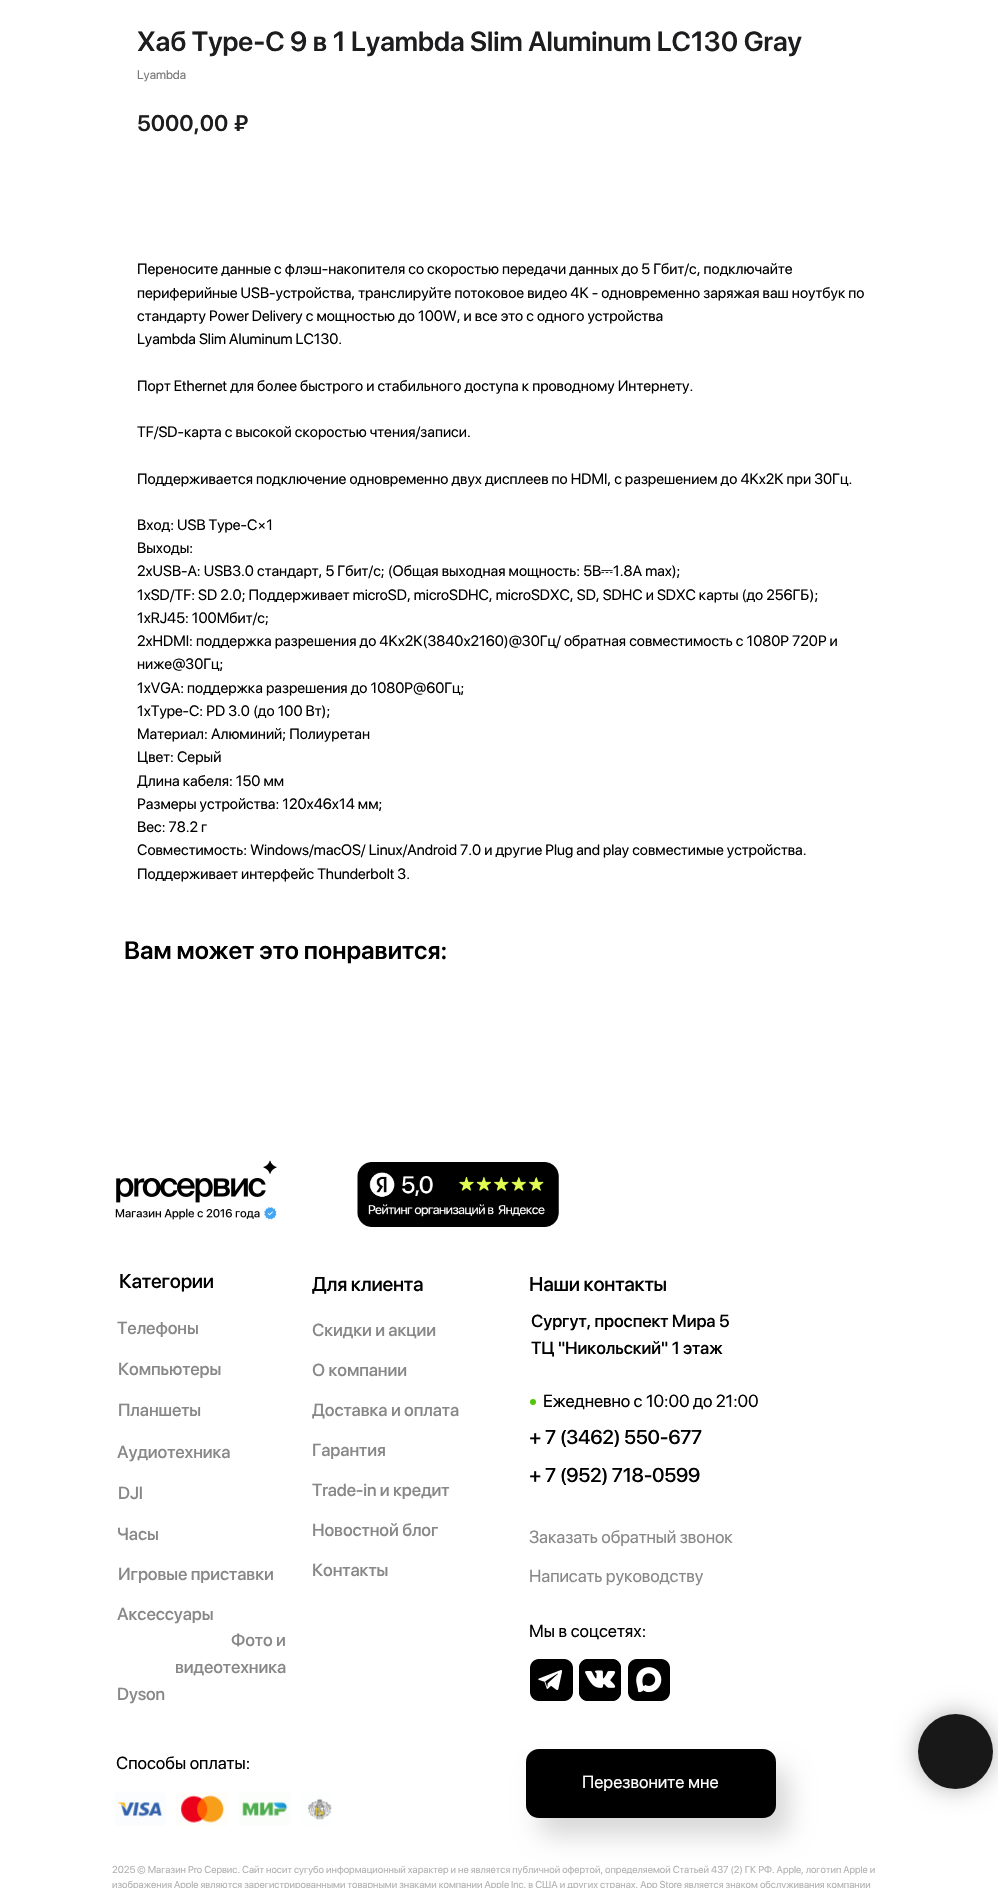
static SkFont makeFont(const char* family, int weight, float size, bool italic = false) {
  SkFontStyle style(weight, SkFontStyle::kNormal_Width,
    italic ? SkFontStyle::kItalic_Slant : SkFontStyle::kUpright_Slant);
  SkFont result(fontMgr->matchFamilyStyle(family, style), size);
  result.setSubpixel(true);
  return result;
}

static void text(SkCanvas* c, const char* s, float x, float y, const SkFont& font, SkColor color) {
  SkPaint ink(SkColor4f::FromColor(color));
  ink.setAntiAlias(true);
  c->drawString(s, x, y, font, ink);
}

static void spacedText(SkCanvas* c, const char* s, float x, float y, const SkFont& font, const SkPaint& ink, float letter, float word) {
  std::vector<SkGlyphID> glyphs(font.countText(s, strlen(s), SkTextEncoding::kUTF8));
  std::vector<float> xs(glyphs.size());
  font.textToGlyphs(s, strlen(s), SkTextEncoding::kUTF8, glyphs);
  font.getXPos(glyphs, xs, x);
  float extra = 0;
  for (size_t i = 0; i < glyphs.size(); i++) {
    xs[i] += extra;
    extra += letter + word * (glyphs[i] == font.unicharToGlyph(' '));
  }
  c->drawTextBlob(SkTextBlob::MakeFromPosHGlyphs(glyphs, xs, y, font), 0, 0, ink);
}

static void roundBox(SkCanvas* c, float l, float t, float r, float b, float radius, SkColor color) {
  SkPaint ink(SkColor4f::FromColor(color));
  ink.setAntiAlias(true);
  c->drawRoundRect(SkRect::MakeLTRB(l, t, r, b), radius, radius, ink);
}

static void picture(SkCanvas* c, const char* path, float l, float t, float r, float b) {
  auto image = SkImages::DeferredFromEncodedData(SkData::MakeFromFileName(path));
  c->drawImageRect(image, SkRect::MakeLTRB(l, t, r, b), SkSamplingOptions());
}

void draw(SkCanvas* c) {
  SkPaint paint;
  paint.setAntiAlias(true);
  c->clear(0xffffffff);
  SkFont face1 = makeFont("SF Pro Display", 600, 27.5f);
  text(c, "Хаб Type-C 9 в 1 Lyambda Slim Aluminum LC130 Gray", 137, 51, face1, 0xff1d1d1f);
  SkFont face2 = makeFont("SF Pro Display", 400, 12.5f);
  text(c, "Lyambda", 137, 79, face2, 0xff777777);
  SkFont face3 = makeFont("SF Pro Display", 600, 22.5f);
  text(c, "5000,00", 137, 131, face3, 0xff1d1d1f);
  text(c, "₽", 234, 131, face3, 0xff1d1d1f);
  SkFont face4 = makeFont("SF Pro Display", 400, 15);
  text(c, "Переносите данные с флэш-накопителя со скоростью передачи данных до 5 Гбит/с, подключайте", 137, 274, face4, 0xff000000);
  text(c, "периферийные USB-устройства, транслируйте потоковое видео 4K - одновременно заряжая ваш ноутбук по", 137, 298, face4, 0xff000000);
  text(c, "стандарту Power Delivery с мощностью до 100W, и все это с одного устройства", 137, 321, face4, 0xff000000);
  text(c, "Lyambda Slim Aluminum LC130.", 137, 344, face4, 0xff000000);
  text(c, "Порт Ethernet для более быстрого и стабильного доступа к проводному Интернету.", 137, 391, face4, 0xff000000);
  text(c, "TF/SD-карта с высокой скоростью чтения/записи.", 137, 437, face4, 0xff000000);
  text(c, "Поддерживается подключение одновременно двух дисплеев по HDMI, с разрешением до 4Kx2K при 30Гц.", 137, 484, face4, 0xff000000);
  text(c, "Вход: USB Type-C×1", 137, 530, face4, 0xff000000);
  text(c, "Выходы:", 137, 553, face4, 0xff000000);
  text(c, "2xUSB-A: USB3.0 стандарт, 5 Гбит/с; (Общая выходная мощность: 5В", 137, 576, face4, 0xff000000);
  SkFont face5 = makeFont("FreeSerif", 400, 15);
  text(c, "⎓", 601, 576, face5, 0xff000000);
  text(c, "1.8А max);", 613, 576, face4, 0xff000000);
  text(c, "1xSD/TF: SD 2.0; Поддерживает microSD, microSDHC, microSDXC, SD, SDHC и SDXC карты (до 256ГБ);", 137, 600, face4, 0xff000000);
  text(c, "1xRJ45: 100Мбит/с;", 137, 623, face4, 0xff000000);
  text(c, "2xHDMI: поддержка разрешения до 4Kх2K(3840х2160)@30Гц/ обратная совместимость с 1080P 720P и", 137, 646, face4, 0xff000000);
  text(c, "ниже@30Гц;", 137, 669, face4, 0xff000000);
  text(c, "1xVGA: поддержка разрешения до 1080P@60Гц;", 137, 693, face4, 0xff000000);
  text(c, "1xType-C: PD 3.0 (до 100 Вт);", 137, 716, face4, 0xff000000);
  text(c, "Материал: Алюминий; Полиуретан", 137, 739, face4, 0xff000000);
  text(c, "Цвет: Серый", 137, 762, face4, 0xff000000);
  text(c, "Длина кабеля: 150 мм", 137, 786, face4, 0xff000000);
  text(c, "Размеры устройства: 120х46х14 мм;", 137, 809, face4, 0xff000000);
  text(c, "Вес: 78.2 г", 137, 832, face4, 0xff000000);
  text(c, "Совместимость: Windows/macOS/ Linux/Android 7.0 и другие Plug and play совместимые устройства.", 137, 855, face4, 0xff000000);
  text(c, "Поддерживает интерфейс Thunderbolt 3.", 137, 879, face4, 0xff000000);
  SkFont face6 = makeFont("SF Pro Display", 600, 25);
  text(c, "Вам может это понравится:", 124, 959, face6, 0xff000000);
  picture(c, "img_01.png", 115, 1160, 277, 1220);
  picture(c, "img_02.png", 357, 1162, 559, 1227);
  SkFont face7 = makeFont("SF Pro Display", 500, 20);
  paint.setColor(0xff000000);
  spacedText(c, "Категории", 119, 1288, face7, paint, -0.25f, 0);
  spacedText(c, "Для клиента", 312, 1291, face7, paint, -0.25f, 0);
  spacedText(c, "Наши контакты", 529, 1291, face7, paint, -0.25f, 0);
  SkFont face8 = makeFont("SF Pro Display", 500, 17.5f);
  paint.setColor(0xff888888);
  spacedText(c, "Телефоны", 117, 1334, face8, paint, -0.1f, 0);
  spacedText(c, "Скидки и акции", 312, 1336, face8, paint, -0.1f, 0);
  paint.setColor(0xff000000);
  spacedText(c, "Сургут, проспект Мира 5", 531, 1327, face8, paint, -0.1f, 0);
  spacedText(c, "ТЦ \"Никольский\" 1 этаж", 531, 1354, face8, paint, -0.1f, 0);
  paint.setColor(0xff888888);
  spacedText(c, "Компьютеры", 118, 1375, face8, paint, -0.1f, 0);
  spacedText(c, "О компании", 312, 1376, face8, paint, -0.1f, 0);
  paint.setColor(0xff54c60a);
  c->drawCircle(533, 1402, 3, paint);
  SkFont face9 = makeFont("SF Pro Display", 400, 17.5f);
  paint.setColor(0xff000000);
  spacedText(c, "Ежедневно с 10:00 до 21:00", 543, 1407, face9, paint, -0.1f, 0);
  paint.setColor(0xff888888);
  spacedText(c, "Планшеты", 118, 1416, face8, paint, -0.1f, 0);
  spacedText(c, "Доставка и оплата", 312, 1416, face8, paint, -0.1f, 0);
  paint.setColor(0xff000000);
  spacedText(c, "+ 7 (3462) 550-677", 529, 1444, face7, paint, -0.25f, 0);
  paint.setColor(0xff888888);
  spacedText(c, "Аудиотехника", 117, 1458, face8, paint, -0.1f, 0);
  spacedText(c, "Гарантия", 312, 1456, face8, paint, -0.1f, 0);
  paint.setColor(0xff000000);
  spacedText(c, "+ 7 (952) 718-0599", 529, 1482, face7, paint, -0.25f, 0);
  paint.setColor(0xff888888);
  spacedText(c, "DJI", 118, 1499, face8, paint, -0.1f, 0);
  spacedText(c, "Trade-in и кредит", 312, 1496, face8, paint, -0.1f, 0);
  spacedText(c, "Часы", 117, 1540, face8, paint, -0.1f, 0);
  spacedText(c, "Новостной блог", 312, 1536, face8, paint, -0.1f, 0);
  spacedText(c, "Заказать обратный звонок", 529, 1543, face9, paint, -0.1f, 0);
  spacedText(c, "Игровые приставки", 118, 1580, face8, paint, -0.1f, 0);
  spacedText(c, "Контакты", 312, 1576, face8, paint, -0.1f, 0);
  spacedText(c, "Написать руководству", 529, 1582, face9, paint, -0.1f, 0);
  spacedText(c, "Аксессуары", 117, 1620, face8, paint, -0.1f, 0);
  spacedText(c, "Фото и", 231, 1646, face8, paint, -0.1f, 0);
  spacedText(c, "видеотехника", 175, 1673, face8, paint, -0.1f, 0);
  text(c, "Мы в соцсетях:", 529, 1637, face9, 0xff000000);
  picture(c, "img_03.png", 530, 1659, 573, 1701);
  picture(c, "img_04.png", 579, 1659, 621, 1701);
  spacedText(c, "Dyson", 117, 1700, face8, paint, -0.1f, 0);
  picture(c, "img_05.png", 579, 1659, 621, 1701);
  picture(c, "img_06.png", 628, 1659, 670, 1701);
  text(c, "Способы оплаты:", 116, 1769, face9, 0xff000000);
  paint.setColor(0x26000000);
  paint.setMaskFilter(SkMaskFilter::MakeBlur(kNormal_SkBlurStyle, 12.5f));
  c->drawRoundRect(SkRect::MakeLTRB(539, 1768, 789, 1836), 13, 13, paint);
  paint.setMaskFilter(nullptr);
  roundBox(c, 526, 1749, 776, 1818, 13, 0xff000000);
  text(c, "Перезвоните мне", 582, 1788, face9, 0xffffffff);
  picture(c, "img_07.png", 114, 1792, 332, 1826);
  SkFont face10 = makeFont("SF Pro Display", 400, 10);
  text(c, "2025 © Магазин Pro Сервис. Сайт носит сугубо информационный характер и не является публичной офертой, определяемой Статьей 437 (2) ГК РФ. Apple, логотип Apple и", 112, 1873, face10, 0xffb3b3b3);
  text(c, "изображения Apple являются зарегистрированными товарными знаками компании Apple Inc. в США и других странах. App Store является знаком обслуживания компании", 112, 1888, face10, 0xffb3b3b3);
  paint.setColor(0x4d000000);
  paint.setMaskFilter(SkMaskFilter::MakeBlur(kNormal_SkBlurStyle, 12.5f));
  c->drawRoundRect(SkRect::MakeLTRB(918, 1714, 993, 1789), 37.5f, 37.5f, paint);
  paint.setMaskFilter(nullptr);
  paint.setColor(0xff181818);
  c->drawCircle(955.5f, 1751.5f, 37.5f, paint);
}
